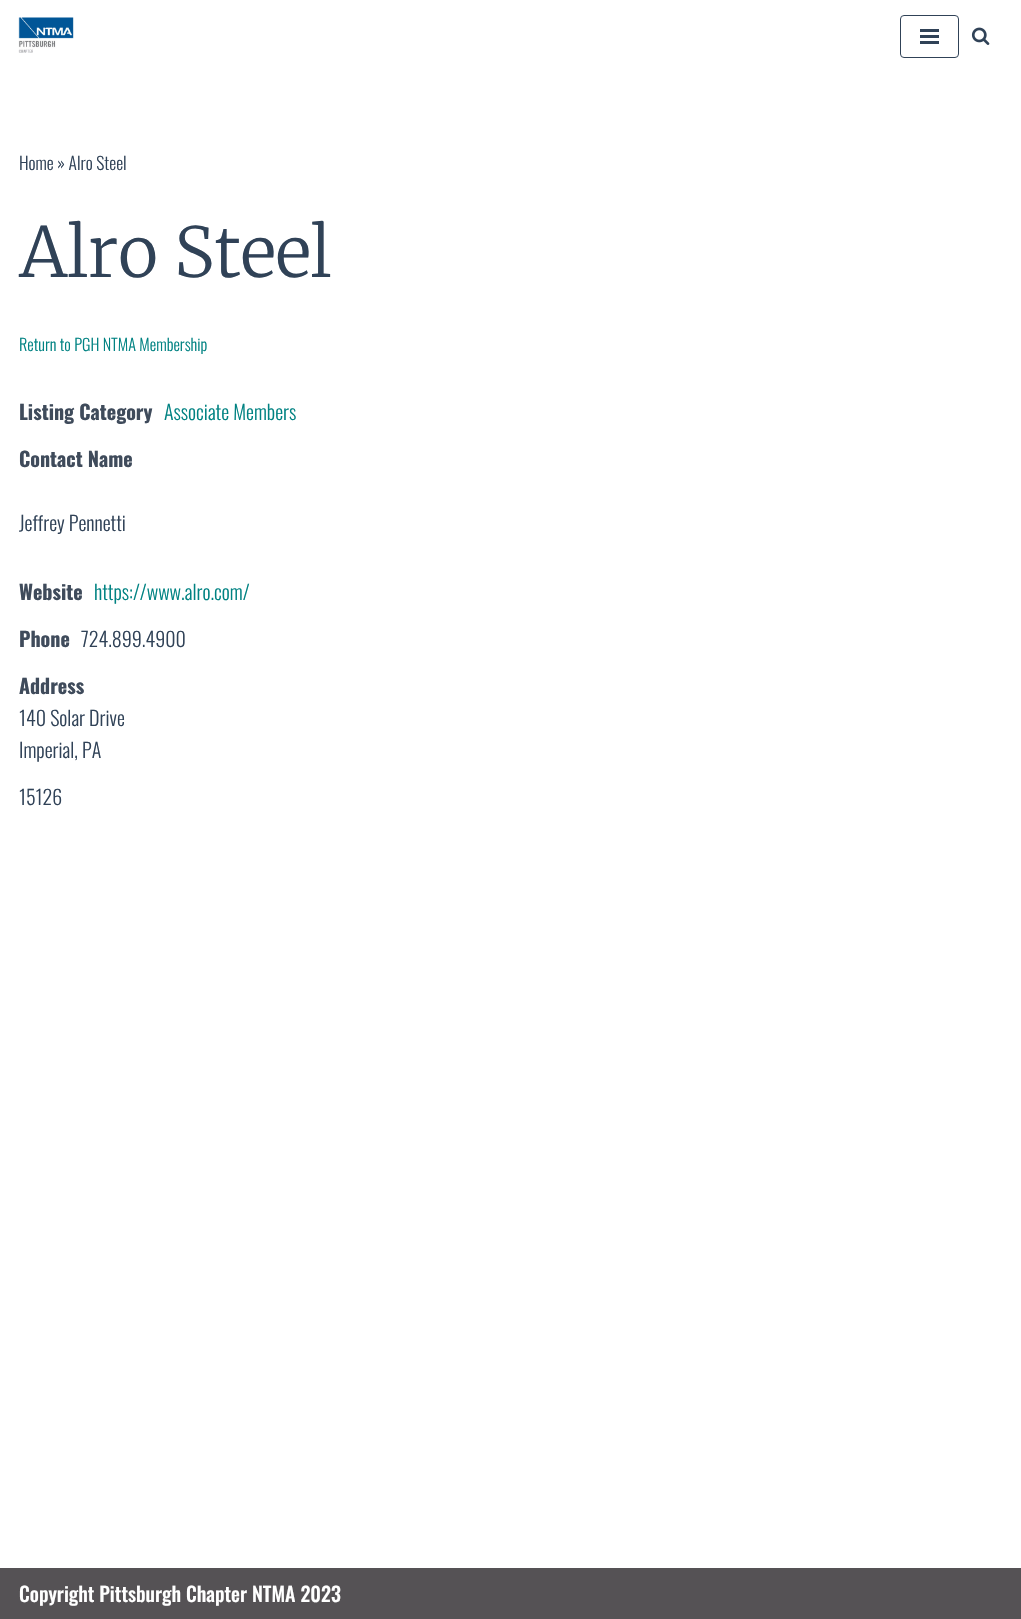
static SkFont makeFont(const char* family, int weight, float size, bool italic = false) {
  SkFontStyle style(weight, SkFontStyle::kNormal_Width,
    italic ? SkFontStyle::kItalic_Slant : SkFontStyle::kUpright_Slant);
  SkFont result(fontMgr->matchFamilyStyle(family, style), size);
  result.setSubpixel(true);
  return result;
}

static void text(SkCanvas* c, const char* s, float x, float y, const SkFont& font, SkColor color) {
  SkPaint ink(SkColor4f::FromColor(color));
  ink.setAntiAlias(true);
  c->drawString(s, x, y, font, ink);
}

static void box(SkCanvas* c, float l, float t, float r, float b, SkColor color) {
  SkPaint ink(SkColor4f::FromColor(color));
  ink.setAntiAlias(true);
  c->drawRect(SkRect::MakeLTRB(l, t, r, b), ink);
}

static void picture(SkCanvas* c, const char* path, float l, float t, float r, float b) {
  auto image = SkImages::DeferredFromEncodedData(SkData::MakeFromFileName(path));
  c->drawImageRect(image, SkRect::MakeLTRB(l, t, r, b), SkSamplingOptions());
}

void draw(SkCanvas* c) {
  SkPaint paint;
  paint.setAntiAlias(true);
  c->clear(0xffffffff);
  picture(c, "img_01.png", 18, 17, 74, 53);
  paint.setStyle(SkPaint::kStroke_Style);
  paint.setStrokeWidth(1);
  paint.setColor(0xff304257);
  c->drawRoundRect(SkRect::MakeLTRB(900.5f, 15.5f, 958.5f, 57.5f), 3.5f, 3.5f, paint);
  box(c, 920, 29, 939, 32, 0xff304257);
  box(c, 920, 35, 939, 38, 0xff304257);
  box(c, 920, 41, 939, 44, 0xff304257);
  picture(c, "img_02.png", 971, 27, 990, 45);
  SkFont face1 = makeFont("Oswald", 300, 17.5f);
  text(c, "Home » Alro Steel", 19, 170, face1, 0xff304257);
  SkFont face2 = makeFont("Merriweather", 300, 68.75f);
  text(c, "Alro Steel", 19, 277, face2, 0xff304257);
  SkFont face3 = makeFont("Oswald", 300, 16.25f);
  text(c, "Return to PGH NTMA Membership", 19, 351, face3, 0xff008282);
  SkFont face4 = makeFont("Oswald", 700, 20);
  text(c, "Listing Category", 19, 420, face4, 0xff3f4b5b);
  SkFont face5 = makeFont("Oswald", 300, 20);
  text(c, "Associate Members", 164, 420, face5, 0xff008282);
  text(c, "Contact Name", 19, 467, face4, 0xff3f4b5b);
  text(c, "Jeffrey Pennetti", 19, 531, face5, 0xff304257);
  text(c, "Website", 19, 600, face4, 0xff3f4b5b);
  text(c, "https://www.alro.com/", 94, 600, face5, 0xff008282);
  text(c, "Phone", 19, 647, face4, 0xff3f4b5b);
  text(c, "724.899.4900", 81, 647, face5, 0xff304257);
  text(c, "Address", 19, 694, face4, 0xff3f4b5b);
  text(c, "140 Solar Drive", 19, 726, face5, 0xff304257);
  text(c, "Imperial, PA", 19, 758, face5, 0xff304257);
  text(c, "15126", 19, 805, face5, 0xff304257);
  box(c, 0, 1568, 1021, 1619, 0xff555255);
  SkFont face6 = makeFont("Oswald", 500, 20);
  text(c, "Copyright Pittsburgh Chapter NTMA 2023", 19, 1602, face6, 0xffffffff);
}
